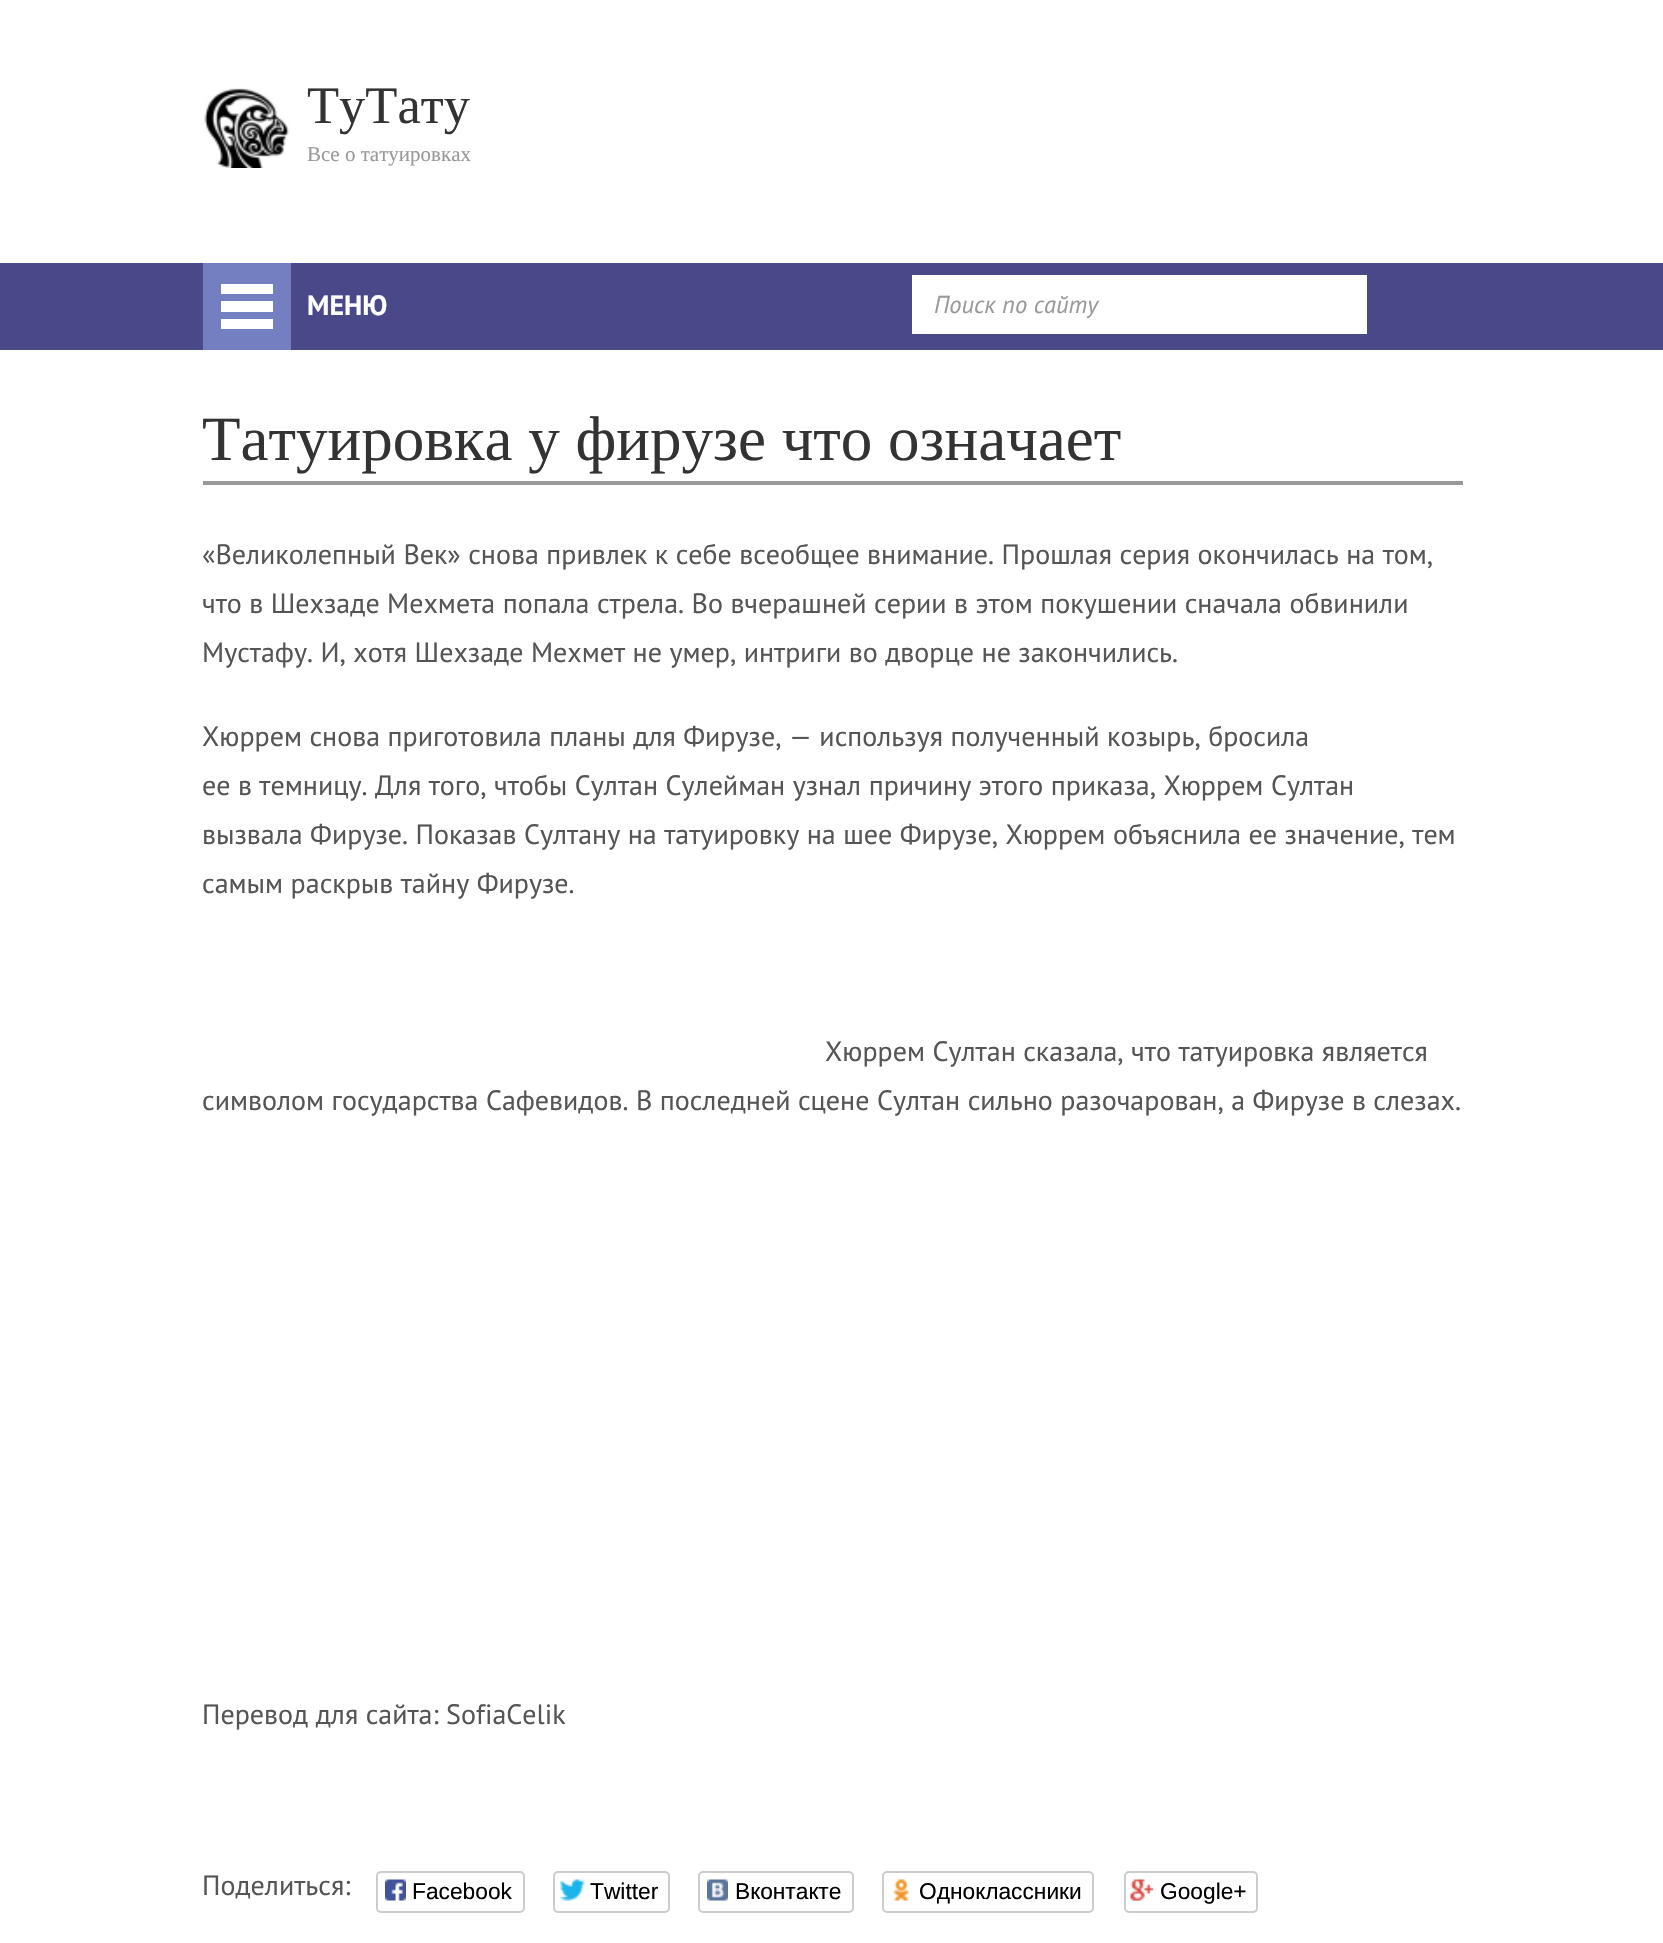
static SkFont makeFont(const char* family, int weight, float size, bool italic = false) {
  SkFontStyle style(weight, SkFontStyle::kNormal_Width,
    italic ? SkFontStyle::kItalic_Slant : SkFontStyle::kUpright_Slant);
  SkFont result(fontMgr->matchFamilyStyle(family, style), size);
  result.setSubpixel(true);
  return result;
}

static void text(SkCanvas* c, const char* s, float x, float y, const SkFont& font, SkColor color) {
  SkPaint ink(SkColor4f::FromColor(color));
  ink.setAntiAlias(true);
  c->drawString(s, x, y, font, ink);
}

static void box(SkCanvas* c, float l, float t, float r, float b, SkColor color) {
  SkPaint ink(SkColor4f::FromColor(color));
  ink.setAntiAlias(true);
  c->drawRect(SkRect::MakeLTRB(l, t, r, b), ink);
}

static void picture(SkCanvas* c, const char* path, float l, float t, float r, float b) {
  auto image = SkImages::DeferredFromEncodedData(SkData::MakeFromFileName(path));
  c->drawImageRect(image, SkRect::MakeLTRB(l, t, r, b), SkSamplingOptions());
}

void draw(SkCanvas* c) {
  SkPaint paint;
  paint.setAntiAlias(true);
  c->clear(0xffffffff);
  picture(c, "img_01.png", 204, 88, 290, 168);
  SkFont face1 = makeFont("Liberation Serif", 400, 52.5f);
  text(c, "ТуТату", 307, 123, face1, 0xff333333);
  SkFont face2 = makeFont("Liberation Serif", 400, 21);
  text(c, "Все о татуировках", 307, 161, face2, 0xff999999);
  box(c, 0, 263, 1663, 350, 0xff494989);
  box(c, 203, 263, 291, 350, 0xff747fc2);
  box(c, 221, 284, 273, 294, 0xffffffff);
  box(c, 221, 301, 273, 312, 0xffffffff);
  box(c, 221, 319, 273, 329, 0xffffffff);
  SkFont face3 = makeFont("PT Sans", 700, 28);
  text(c, "МЕНЮ", 307, 315, face3, 0xffffffff);
  box(c, 912, 275, 1367, 334, 0xffffffff);
  SkFont face4 = makeFont("PT Sans", 400, 24.5f, true);
  text(c, "Поиск по сайту", 934, 313, face4, 0xff999999);
  box(c, 203, 481, 1463, 485, 0xff999999);
  SkFont face5 = makeFont("Liberation Serif", 400, 63);
  text(c, "Татуировка у фирузе что означает", 202, 460, face5, 0xff333333);
  SkFont face6 = makeFont("PT Sans", 400, 28);
  text(c, "«Великолепный Век» снова привлек к себе всеобщее внимание. Прошлая серия окончилась на том,", 202, 564, face6, 0xff555555);
  text(c, "что в Шехзаде Мехмета попала стрела. Во вчерашней серии в этом покушении сначала обвинили", 202, 613, face6, 0xff555555);
  text(c, "Мустафу. И, хотя Шехзаде Мехмет не умер, интриги во дворце не закончились.", 202, 662, face6, 0xff555555);
  text(c, "Хюррем снова приготовила планы для Фирузе, — используя полученный козырь, бросила", 202, 746, face6, 0xff555555);
  text(c, "ее в темницу. Для того, чтобы Султан Сулейман узнал причину этого приказа, Хюррем Султан", 202, 795, face6, 0xff555555);
  text(c, "вызвала Фирузе. Показав Султану на татуировку на шее Фирузе, Хюррем объяснила ее значение, тем", 202, 844, face6, 0xff555555);
  text(c, "самым раскрыв тайну Фирузе.", 202, 893, face6, 0xff555555);
  text(c, "Хюррем Султан сказала, что татуировка является", 825, 1061, face6, 0xff555555);
  text(c, "символом государства Сафевидов. В последней сцене Султан сильно разочарован, а Фирузе в слезах.", 202, 1110, face6, 0xff555555);
  text(c, "Перевод для сайта: SofiaCelik", 202, 1724, face6, 0xff555555);
  text(c, "Поделиться:", 202, 1895, face6, 0xff555555);
  paint.setStyle(SkPaint::kStroke_Style);
  paint.setStrokeWidth(2);
  paint.setColor(0xffcccccc);
  c->drawRoundRect(SkRect::MakeLTRB(377, 1872, 524, 1912), 4, 4, paint);
  picture(c, "img_02.png", 385, 1879, 406, 1901);
  SkFont face7 = makeFont("Liberation Sans", 400, 22.75f);
  text(c, "Facebook", 412, 1899, face7, 0xff000000);
  c->drawRoundRect(SkRect::MakeLTRB(554, 1872, 669, 1912), 4, 4, paint);
  picture(c, "img_03.png", 560, 1879, 585, 1901);
  text(c, "Twitter", 590, 1899, face7, 0xff000000);
  c->drawRoundRect(SkRect::MakeLTRB(699, 1872, 853, 1912), 4, 4, paint);
  picture(c, "img_04.png", 707, 1879, 728, 1901);
  text(c, "Вконтакте", 735, 1899, face7, 0xff000000);
  c->drawRoundRect(SkRect::MakeLTRB(883, 1872, 1093, 1912), 4, 4, paint);
  picture(c, "img_05.png", 894, 1879, 909, 1901);
  text(c, "Одноклассники", 919, 1899, face7, 0xff000000);
  c->drawRoundRect(SkRect::MakeLTRB(1125, 1872, 1257, 1912), 4, 4, paint);
  picture(c, "img_06.png", 1130, 1879, 1154, 1901);
  text(c, "Google+", 1160, 1899, face7, 0xff000000);
}
